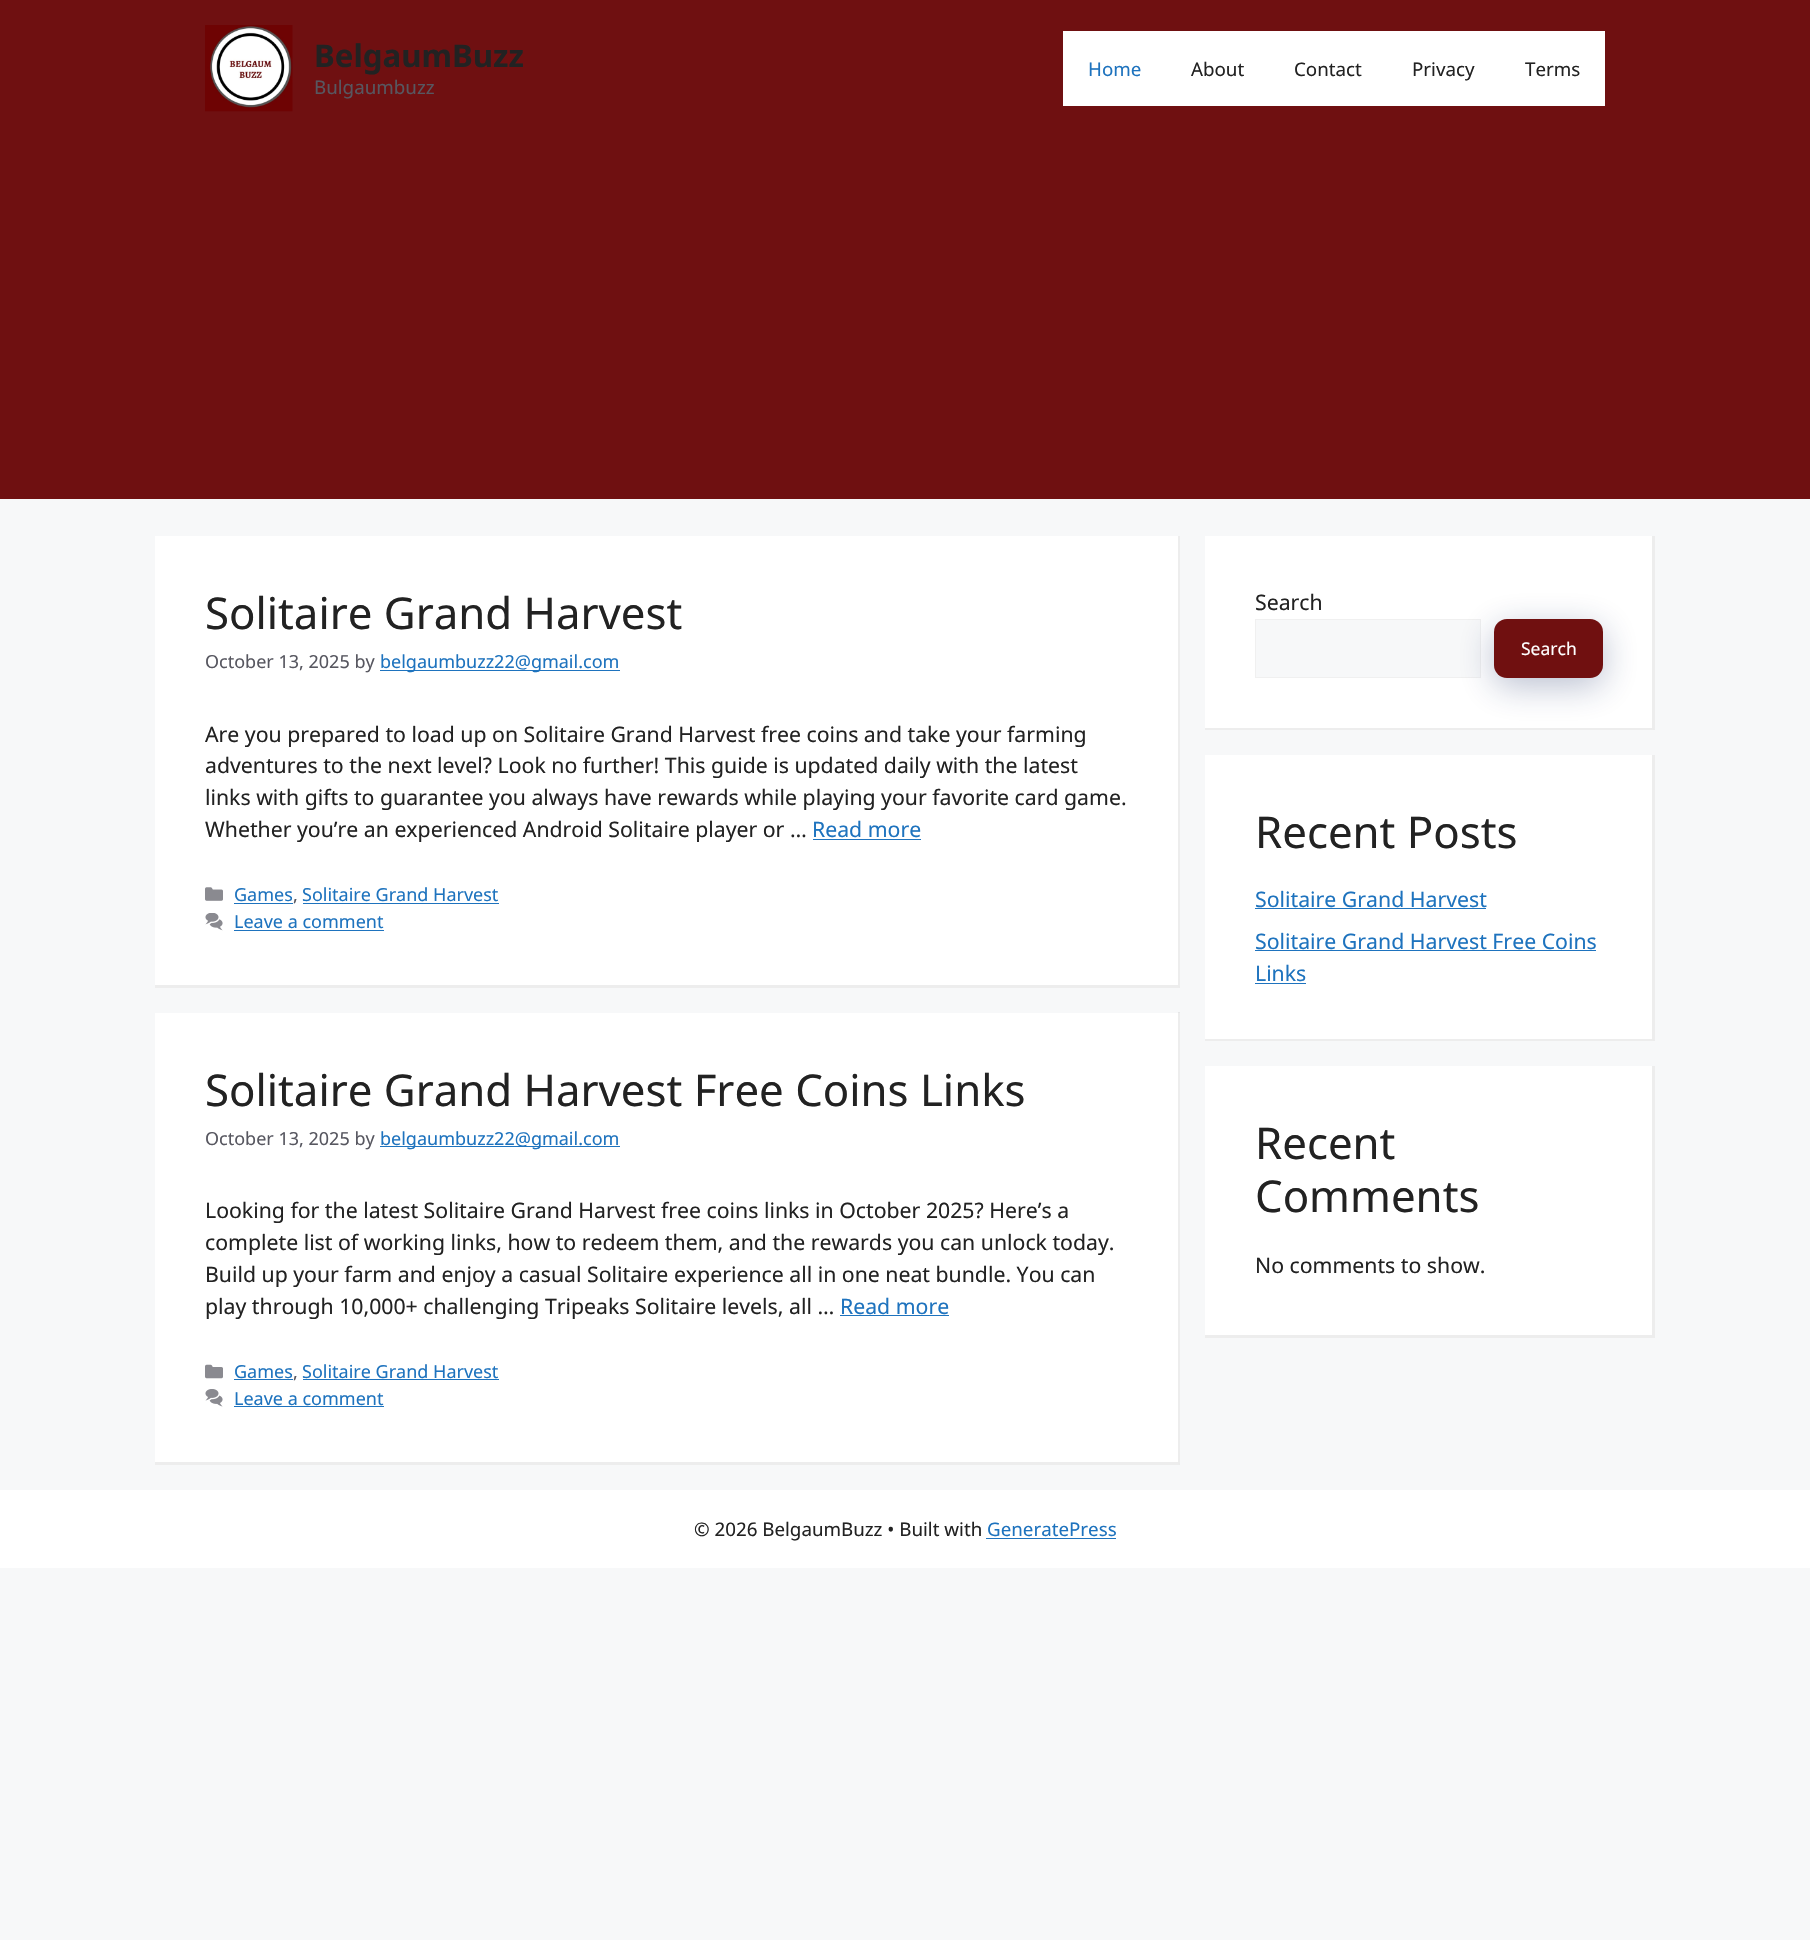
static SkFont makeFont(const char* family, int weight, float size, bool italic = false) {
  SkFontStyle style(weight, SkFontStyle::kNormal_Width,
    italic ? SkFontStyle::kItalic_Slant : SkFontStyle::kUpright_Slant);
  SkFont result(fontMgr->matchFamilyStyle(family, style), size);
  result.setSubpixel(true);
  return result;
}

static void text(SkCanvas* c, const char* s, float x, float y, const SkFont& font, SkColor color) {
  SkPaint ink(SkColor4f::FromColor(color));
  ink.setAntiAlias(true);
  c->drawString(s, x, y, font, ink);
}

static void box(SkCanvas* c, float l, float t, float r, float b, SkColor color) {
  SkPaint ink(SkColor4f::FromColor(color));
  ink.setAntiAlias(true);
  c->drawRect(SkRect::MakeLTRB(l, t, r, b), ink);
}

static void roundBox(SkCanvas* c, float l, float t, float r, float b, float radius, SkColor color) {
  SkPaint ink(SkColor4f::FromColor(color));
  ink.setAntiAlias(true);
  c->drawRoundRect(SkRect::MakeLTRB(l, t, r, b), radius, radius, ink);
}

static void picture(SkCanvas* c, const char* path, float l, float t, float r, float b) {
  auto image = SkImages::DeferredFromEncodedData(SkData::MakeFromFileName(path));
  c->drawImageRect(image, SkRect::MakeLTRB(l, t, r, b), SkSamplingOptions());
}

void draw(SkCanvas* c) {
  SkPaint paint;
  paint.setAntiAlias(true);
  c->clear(0xfff7f8f9);
  box(c, 0, 0, 1810, 499, 0xff6f1011);
  picture(c, "img_01.png", 205, 25, 293, 112);
  SkFont face1 = makeFont("Noto Sans", 700, 31.25f);
  text(c, "BelgaumBuzz", 314, 67, face1, 0xff222222);
  SkFont face2 = makeFont("Noto Sans", 400, 18.75f);
  text(c, "Bulgaumbuzz", 314, 94, face2, 0xff575760);
  box(c, 1063, 31, 1605, 106, 0xffffffff);
  text(c, "Home", 1088, 76, face2, 0xff1e73be);
  text(c, "About", 1191, 76, face2, 0xff222222);
  text(c, "Contact", 1294, 76, face2, 0xff222222);
  text(c, "Privacy", 1412, 76, face2, 0xff222222);
  text(c, "Terms", 1525, 76, face2, 0xff222222);
  box(c, 155, 536, 1180, 988, 0xffffffff);
  paint.setColor(0xffededed);
  c->drawPath(SkPathBuilder().moveTo(1180, 536).lineTo(1180, 988).lineTo(1178, 985).lineTo(1178, 536).close().detach(), paint);
  paint.setColor(0x12000000);
  c->drawPath(SkPathBuilder().moveTo(1180, 988).lineTo(155, 988).lineTo(155, 985).lineTo(1178, 985).close().detach(), paint);
  SkFont face3 = makeFont("Noto Sans", 400, 43.75f);
  text(c, "Solitaire Grand Harvest", 205, 629, face3, 0xff222222);
  SkFont face4 = makeFont("Noto Sans", 400, 18);
  text(c, "October 13, 2025 by", 205, 668, face4, 0xff575760);
  box(c, 380, 670, 620, 671, 0xff1e73be);
  text(c, "belgaumbuzz22@gmail.com", 380, 668, face4, 0xff1e73be);
  SkFont face5 = makeFont("Noto Sans", 400, 21.25f);
  text(c, "Are you prepared to load up on Solitaire Grand Harvest free coins and take your farming", 205, 742, face5, 0xff222222);
  text(c, "adventures to the next level? Look no further! This guide is updated daily with the latest", 205, 773, face5, 0xff222222);
  text(c, "links with gifts to guarantee you always have rewards while playing your favorite card game.", 205, 805, face5, 0xff222222);
  text(c, "Whether you’re an experienced Android Solitaire player or …", 205, 837, face5, 0xff222222);
  text(c, "Read more", 812, 837, face5, 0xff1e73be);
  box(c, 813, 839, 921, 840, 0xff1e73be);
  picture(c, "img_02.png", 205, 887, 223, 901);
  text(c, "Games", 234, 901, face4, 0xff1e73be);
  box(c, 234, 903, 293, 904, 0xff1e73be);
  text(c, ",", 293, 901, face4, 0xff575760);
  text(c, "Solitaire Grand Harvest", 302, 901, face4, 0xff1e73be);
  box(c, 303, 903, 499, 904, 0xff1e73be);
  picture(c, "img_03.png", 205, 913, 223, 931);
  text(c, "Leave a comment", 234, 928, face4, 0xff1e73be);
  box(c, 234, 930, 384, 931, 0xff1e73be);
  box(c, 155, 1013, 1180, 1465, 0xffffffff);
  c->drawPath(SkPathBuilder().moveTo(1180, 1012).lineTo(1180, 1465).lineTo(1178, 1462).lineTo(1178, 1012).close().detach(), paint);
  c->drawPath(SkPathBuilder().moveTo(1180, 1465).lineTo(155, 1465).lineTo(155, 1462).lineTo(1178, 1462).close().detach(), paint);
  text(c, "Solitaire Grand Harvest Free Coins Links", 205, 1106, face3, 0xff222222);
  text(c, "October 13, 2025 by", 205, 1145, face4, 0xff575760);
  box(c, 380, 1146, 620, 1147, 0xff1e73be);
  text(c, "belgaumbuzz22@gmail.com", 380, 1145, face4, 0xff1e73be);
  text(c, "Looking for the latest Solitaire Grand Harvest free coins links in October 2025? Here’s a", 205, 1218, face5, 0xff222222);
  text(c, "complete list of working links, how to redeem them, and the rewards you can unlock today.", 205, 1250, face5, 0xff222222);
  text(c, "Build up your farm and enjoy a casual Solitaire experience all in one neat bundle. You can", 205, 1282, face5, 0xff222222);
  text(c, "play through 10,000+ challenging Tripeaks Solitaire levels, all …", 205, 1314, face5, 0xff222222);
  text(c, "Read more", 840, 1314, face5, 0xff1e73be);
  box(c, 840, 1315, 949, 1316, 0xff1e73be);
  picture(c, "img_04.png", 205, 1364, 223, 1379);
  text(c, "Games", 234, 1378, face4, 0xff1e73be);
  box(c, 234, 1379, 293, 1380, 0xff1e73be);
  text(c, ",", 293, 1378, face4, 0xff575760);
  text(c, "Solitaire Grand Harvest", 302, 1378, face4, 0xff1e73be);
  box(c, 303, 1379, 499, 1380, 0xff1e73be);
  picture(c, "img_05.png", 205, 1389, 223, 1407);
  text(c, "Leave a comment", 234, 1405, face4, 0xff1e73be);
  box(c, 234, 1406, 384, 1407, 0xff1e73be);
  box(c, 1205, 536, 1655, 730, 0xffffffff);
  paint.setColor(0xffededed);
  c->drawPath(SkPathBuilder().moveTo(1655, 536).lineTo(1655, 730).lineTo(1652, 728).lineTo(1652, 536).close().detach(), paint);
  paint.setColor(0x12000000);
  c->drawPath(SkPathBuilder().moveTo(1655, 730).lineTo(1205, 730).lineTo(1205, 728).lineTo(1652, 728).close().detach(), paint);
  text(c, "Search", 1255, 610, face5, 0xff222222);
  paint.setColor(0xfff7f8f9);
  c->drawRect(SkRect::MakeLTRB(1255.5f, 619.5f, 1480.5f, 677.5f), paint);
  paint.setStyle(SkPaint::kStroke_Style);
  paint.setStrokeWidth(1);
  paint.setColor(0xfff0f0f0);
  c->drawRect(SkRect::MakeLTRB(1255.5f, 619.5f, 1480.5f, 677.5f), paint);
  paint.setStyle(SkPaint::kFill_Style);
  paint.setColor(0x4d172b63);
  paint.setMaskFilter(SkMaskFilter::MakeBlur(kNormal_SkBlurStyle, 17.5f));
  c->drawRoundRect(SkRect::MakeLTRB(1494, 628, 1603, 686), 13, 13, paint);
  paint.setMaskFilter(nullptr);
  roundBox(c, 1494, 619, 1603, 678, 13, 0xff701010);
  SkFont face6 = makeFont("Noto Sans", 400, 17.5f);
  text(c, "Search", 1521, 655, face6, 0xffffffff);
  box(c, 1205, 755, 1655, 1041, 0xffffffff);
  paint.setColor(0xffededed);
  c->drawPath(SkPathBuilder().moveTo(1655, 755).lineTo(1655, 1041).lineTo(1652, 1039).lineTo(1652, 755).close().detach(), paint);
  paint.setColor(0x12000000);
  c->drawPath(SkPathBuilder().moveTo(1655, 1041).lineTo(1205, 1041).lineTo(1205, 1039).lineTo(1652, 1039).close().detach(), paint);
  text(c, "Recent Posts", 1255, 848, face3, 0xff222222);
  text(c, "Solitaire Grand Harvest", 1255, 907, face5, 0xff1e73be);
  box(c, 1255, 908, 1486, 909, 0xff1e73be);
  text(c, "Solitaire Grand Harvest Free Coins", 1255, 949, face5, 0xff1e73be);
  box(c, 1255, 950, 1596, 951, 0xff1e73be);
  text(c, "Links", 1255, 981, face5, 0xff1e73be);
  box(c, 1255, 983, 1306, 984, 0xff1e73be);
  box(c, 1205, 1066, 1655, 1338, 0xffffffff);
  paint.setColor(0xffededed);
  c->drawPath(SkPathBuilder().moveTo(1655, 1066).lineTo(1655, 1338).lineTo(1652, 1335).lineTo(1652, 1066).close().detach(), paint);
  paint.setColor(0x12000000);
  c->drawPath(SkPathBuilder().moveTo(1655, 1338).lineTo(1205, 1338).lineTo(1205, 1335).lineTo(1652, 1335).close().detach(), paint);
  text(c, "Recent", 1255, 1159, face3, 0xff222222);
  text(c, "Comments", 1255, 1212, face3, 0xff222222);
  text(c, "No comments to show.", 1255, 1273, face5, 0xff222222);
  box(c, 0, 1490, 1810, 1568, 0xffffffff);
  text(c, "© 2026 BelgaumBuzz • Built with", 694, 1536, face2, 0xff222222);
  text(c, "GeneratePress", 987, 1536, face2, 0xff1e73be);
  box(c, 986, 1538, 1116, 1539, 0xff1e73be);
}
